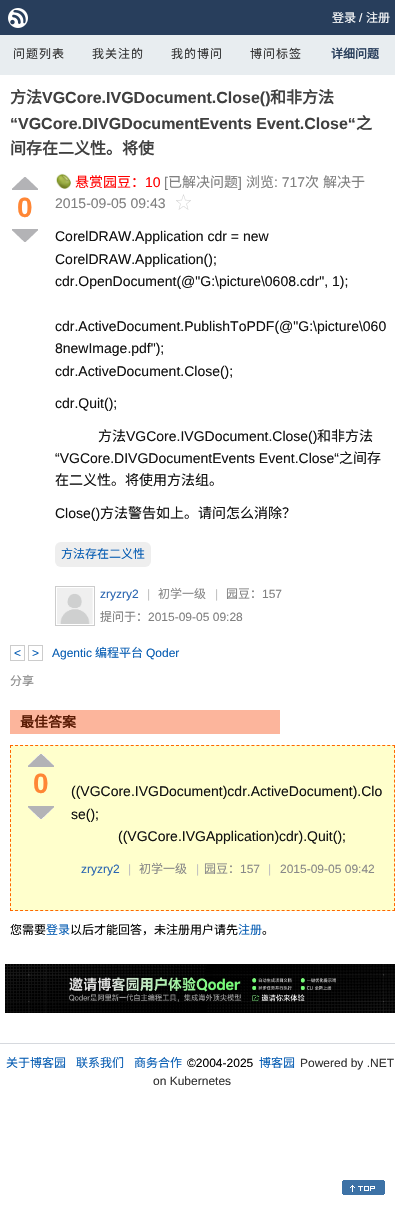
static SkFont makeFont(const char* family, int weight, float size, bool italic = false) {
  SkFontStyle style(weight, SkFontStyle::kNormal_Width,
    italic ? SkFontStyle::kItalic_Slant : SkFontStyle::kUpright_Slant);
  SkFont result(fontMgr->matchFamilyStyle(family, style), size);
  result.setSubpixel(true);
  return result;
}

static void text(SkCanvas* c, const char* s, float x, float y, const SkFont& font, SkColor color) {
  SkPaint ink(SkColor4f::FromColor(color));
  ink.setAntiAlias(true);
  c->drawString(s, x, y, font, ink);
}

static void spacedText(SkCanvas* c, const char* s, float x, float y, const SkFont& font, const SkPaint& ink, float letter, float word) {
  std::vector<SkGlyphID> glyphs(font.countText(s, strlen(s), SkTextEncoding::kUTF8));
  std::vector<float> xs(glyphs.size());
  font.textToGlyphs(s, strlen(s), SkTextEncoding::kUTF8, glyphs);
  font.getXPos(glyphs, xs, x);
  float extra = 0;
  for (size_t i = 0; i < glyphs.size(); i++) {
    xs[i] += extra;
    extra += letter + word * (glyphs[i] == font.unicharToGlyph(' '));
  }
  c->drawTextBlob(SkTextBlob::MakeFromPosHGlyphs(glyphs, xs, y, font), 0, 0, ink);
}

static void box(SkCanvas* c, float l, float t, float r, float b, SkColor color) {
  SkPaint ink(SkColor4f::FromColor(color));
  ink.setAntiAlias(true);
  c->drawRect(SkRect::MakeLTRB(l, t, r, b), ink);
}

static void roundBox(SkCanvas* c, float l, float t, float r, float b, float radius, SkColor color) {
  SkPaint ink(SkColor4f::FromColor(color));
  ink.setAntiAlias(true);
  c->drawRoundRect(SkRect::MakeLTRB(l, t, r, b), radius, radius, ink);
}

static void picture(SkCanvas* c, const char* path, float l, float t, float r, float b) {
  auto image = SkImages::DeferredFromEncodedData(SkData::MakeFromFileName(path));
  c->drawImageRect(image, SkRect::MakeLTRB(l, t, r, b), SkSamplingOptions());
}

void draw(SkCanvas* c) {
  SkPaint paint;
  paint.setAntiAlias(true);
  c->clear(0xffffffff);
  box(c, 0, 0, 395, 35, 0xff283e5c);
  picture(c, "img_01.png", 8, 8, 28, 28);
  SkFont face1 = makeFont("Noto Sans CJK SC", 400, 12);
  text(c, "登录", 332, 22, face1, 0xffffffff);
  SkFont face2 = makeFont("Liberation Sans", 400, 12);
  text(c, "/", 359, 22, face2, 0xffffffff);
  text(c, "注册", 366, 22, face1, 0xffffffff);
  box(c, 0, 35, 395, 75, 0xffe8edf0);
  paint.setColor(0xff333333);
  spacedText(c, "问题列表", 13, 58, face1, paint, 1, 0);
  spacedText(c, "我关注的", 92, 58, face1, paint, 1, 0);
  spacedText(c, "我的博问", 171, 58, face1, paint, 1, 0);
  spacedText(c, "博问标签", 250, 58, face1, paint, 1, 0);
  SkFont face3 = makeFont("Noto Sans CJK SC", 700, 12);
  text(c, "详细问题", 331, 58, face3, 0xff283e5c);
  SkFont face4 = makeFont("Noto Sans CJK SC", 700, 16);
  text(c, "方法", 10, 103, face4, 0xff404040);
  SkFont face5 = makeFont("Liberation Sans", 700, 16);
  text(c, "VGCore.IVGDocument.Close()", 42, 103, face5, 0xff404040);
  text(c, "和非方法", 270, 103, face4, 0xff404040);
  text(c, "“VGCore.DIVGDocumentEvents Event.Close“", 10, 129, face5, 0xff404040);
  text(c, "之", 356, 129, face4, 0xff404040);
  text(c, "间存在二义性。将使", 10, 154, face4, 0xff404040);
  picture(c, "img_02.png", 12, 177, 38, 190);
  SkFont face6 = makeFont("Liberation Sans", 700, 28);
  text(c, "0", 17, 217, face6, 0xffff8635);
  picture(c, "img_03.png", 12, 229, 38, 242);
  picture(c, "img_04.png", 56, 173, 71, 189);
  SkFont face7 = makeFont("Noto Sans CJK SC", 400, 14);
  text(c, "悬赏园豆：", 75, 187, face7, 0xffff0000);
  SkFont face8 = makeFont("Liberation Sans", 400, 14);
  text(c, "10", 145, 187, face8, 0xffff0000);
  text(c, "[", 164, 187, face8, 0xff808080);
  text(c, "已解决问题", 168, 187, face7, 0xff808080);
  text(c, "]", 238, 187, face8, 0xff808080);
  text(c, "浏览", 246, 187, face7, 0xff808080);
  text(c, ": 717", 274, 187, face8, 0xff808080);
  text(c, "次", 305, 187, face7, 0xff808080);
  text(c, "解决于", 323, 187, face7, 0xff808080);
  text(c, "2015-09-05 09:43", 55, 208, face8, 0xff808080);
  picture(c, "img_05.png", 176, 194, 191, 210);
  text(c, "CorelDRAW.Application cdr = new", 55, 241, face8, 0xff111111);
  text(c, "CorelDRAW.Application();", 55, 264, face8, 0xff111111);
  text(c, "cdr.OpenDocument(@\"G:\\picture\\0608.cdr\", 1);", 55, 286, face8, 0xff111111);
  text(c, "cdr.ActiveDocument.PublishToPDF(@\"G:\\picture\\060", 55, 331, face8, 0xff111111);
  text(c, "8newImage.pdf\");", 55, 353, face8, 0xff111111);
  text(c, "cdr.ActiveDocument.Close();", 55, 376, face8, 0xff111111);
  text(c, "cdr.Quit();", 55, 408, face8, 0xff111111);
  text(c, "方法", 98, 441, face7, 0xff111111);
  text(c, "VGCore.IVGDocument.Close()", 126, 441, face8, 0xff111111);
  text(c, "和非方法", 317, 441, face7, 0xff111111);
  text(c, "“VGCore.DIVGDocumentEvents Event.Close“", 55, 463, face8, 0xff111111);
  text(c, "之间存", 339, 463, face7, 0xff111111);
  text(c, "在二义性。将使用方法组。", 55, 485, face7, 0xff111111);
  text(c, "Close()", 55, 518, face8, 0xff111111);
  text(c, "方法警告如上。请问怎么消除？", 100, 518, face7, 0xff111111);
  roundBox(c, 55, 542, 151, 567, 6, 0xffeeeeee);
  text(c, "方法存在二义性", 61, 558, face1, 0xff075db3);
  paint.setStyle(SkPaint::kStroke_Style);
  paint.setStrokeWidth(1);
  paint.setColor(0xffcccccc);
  c->drawRect(SkRect::MakeLTRB(55.5f, 586.5f, 94.5f, 625.5f), paint);
  picture(c, "img_06.png", 57, 588, 93, 624);
  text(c, "zryzry2", 100, 598, face2, 0xff2965b1);
  text(c, "|", 147, 598, face2, 0xffc1c1c1);
  text(c, "初学一级", 158, 598, face1, 0xff888888);
  text(c, "|", 215, 598, face2, 0xffc1c1c1);
  text(c, "园豆：", 226, 598, face1, 0xff808080);
  text(c, "157", 262, 598, face2, 0xff808080);
  text(c, "提问于：", 100, 621, face1, 0xff808080);
  text(c, "2015-09-05 09:28", 148, 621, face2, 0xff808080);
  c->drawRect(SkRect::MakeLTRB(10.5f, 645.5f, 24.5f, 660.5f), paint);
  text(c, "<", 14, 657, face2, 0xff075db3);
  c->drawRect(SkRect::MakeLTRB(28.5f, 645.5f, 42.5f, 660.5f), paint);
  text(c, ">", 32, 657, face2, 0xff075db3);
  text(c, "Agentic", 52, 657, face2, 0xff075db3);
  text(c, "编程平台", 95, 657, face1, 0xff075db3);
  text(c, "Qoder", 146, 657, face2, 0xff075db3);
  text(c, "分享", 10, 685, face1, 0xff888888);
  box(c, 10, 710, 280, 734, 0xfffcb59c);
  SkFont face9 = makeFont("Noto Sans CJK SC", 700, 14);
  text(c, "最佳答案", 20, 727, face9, 0xff5a1a03);
  box(c, 10, 745, 395, 911, 0xffffffcc);
  paint.setColor(0xffff6600);
  paint.setPathEffect(SkDashPathEffect::Make({{3, 2.03f}}, 0));
  c->drawPath(SkPathBuilder().moveTo(10, 745.5f).lineTo(395, 745.5f).detach(), paint);
  paint.setPathEffect(nullptr);
  paint.setPathEffect(SkDashPathEffect::Make({{3, 1.94f}}, 0));
  c->drawPath(SkPathBuilder().moveTo(394.5f, 745).lineTo(394.5f, 911).detach(), paint);
  paint.setPathEffect(nullptr);
  paint.setPathEffect(SkDashPathEffect::Make({{3, 2.03f}}, 0));
  c->drawPath(SkPathBuilder().moveTo(10, 910.5f).lineTo(395, 910.5f).detach(), paint);
  paint.setPathEffect(nullptr);
  paint.setPathEffect(SkDashPathEffect::Make({{3, 1.94f}}, 0));
  c->drawPath(SkPathBuilder().moveTo(10.5f, 745).lineTo(10.5f, 911).detach(), paint);
  paint.setPathEffect(nullptr);
  picture(c, "img_07.png", 28, 754, 54, 767);
  text(c, "0", 33, 793, face6, 0xffff8635);
  picture(c, "img_08.png", 28, 806, 54, 819);
  text(c, "((VGCore.IVGDocument)cdr.ActiveDocument).Clo", 71, 796, face8, 0xff111111);
  text(c, "se();", 71, 819, face8, 0xff111111);
  text(c, "((VGCore.IVGApplication)cdr).Quit();", 118, 841, face8, 0xff111111);
  text(c, "zryzry2", 81, 873, face2, 0xff2965b1);
  text(c, "|", 128, 873, face2, 0xffc1c1c1);
  text(c, "初学一级", 139, 873, face1, 0xff888888);
  text(c, "|", 196, 873, face2, 0xffc1c1c1);
  text(c, "园豆：", 204, 873, face1, 0xff888888);
  text(c, "157", 240, 873, face2, 0xff888888);
  text(c, "|", 268, 873, face2, 0xffc1c1c1);
  text(c, "2015-09-05 09:42", 280, 873, face2, 0xff888888);
  text(c, "您需要", 10, 934, face1, 0xff000000);
  text(c, "登录", 46, 934, face1, 0xff075db3);
  text(c, "以后才能回答，未注册用户请先", 70, 934, face1, 0xff000000);
  text(c, "注册", 238, 934, face1, 0xff075db3);
  text(c, "。", 262, 934, face1, 0xff000000);
  picture(c, "img_09.png", 5, 964, 395, 1013);
  box(c, 0, 1043, 395, 1044, 0xffd6d9de);
  text(c, "关于博客园", 6, 1067, face1, 0xff075db3);
  text(c, "联系我们", 76, 1067, face1, 0xff075db3);
  text(c, "商务合作", 134, 1067, face1, 0xff075db3);
  text(c, "©2004-2025", 187, 1067, face2, 0xff000000);
  text(c, "博客园", 259, 1067, face1, 0xff075db3);
  text(c, "Powered by .NET", 300, 1067, face2, 0xff333333);
  text(c, "on Kubernetes", 153, 1085, face2, 0xff333333);
  picture(c, "img_10.png", 342, 1180, 385, 1195);
}
